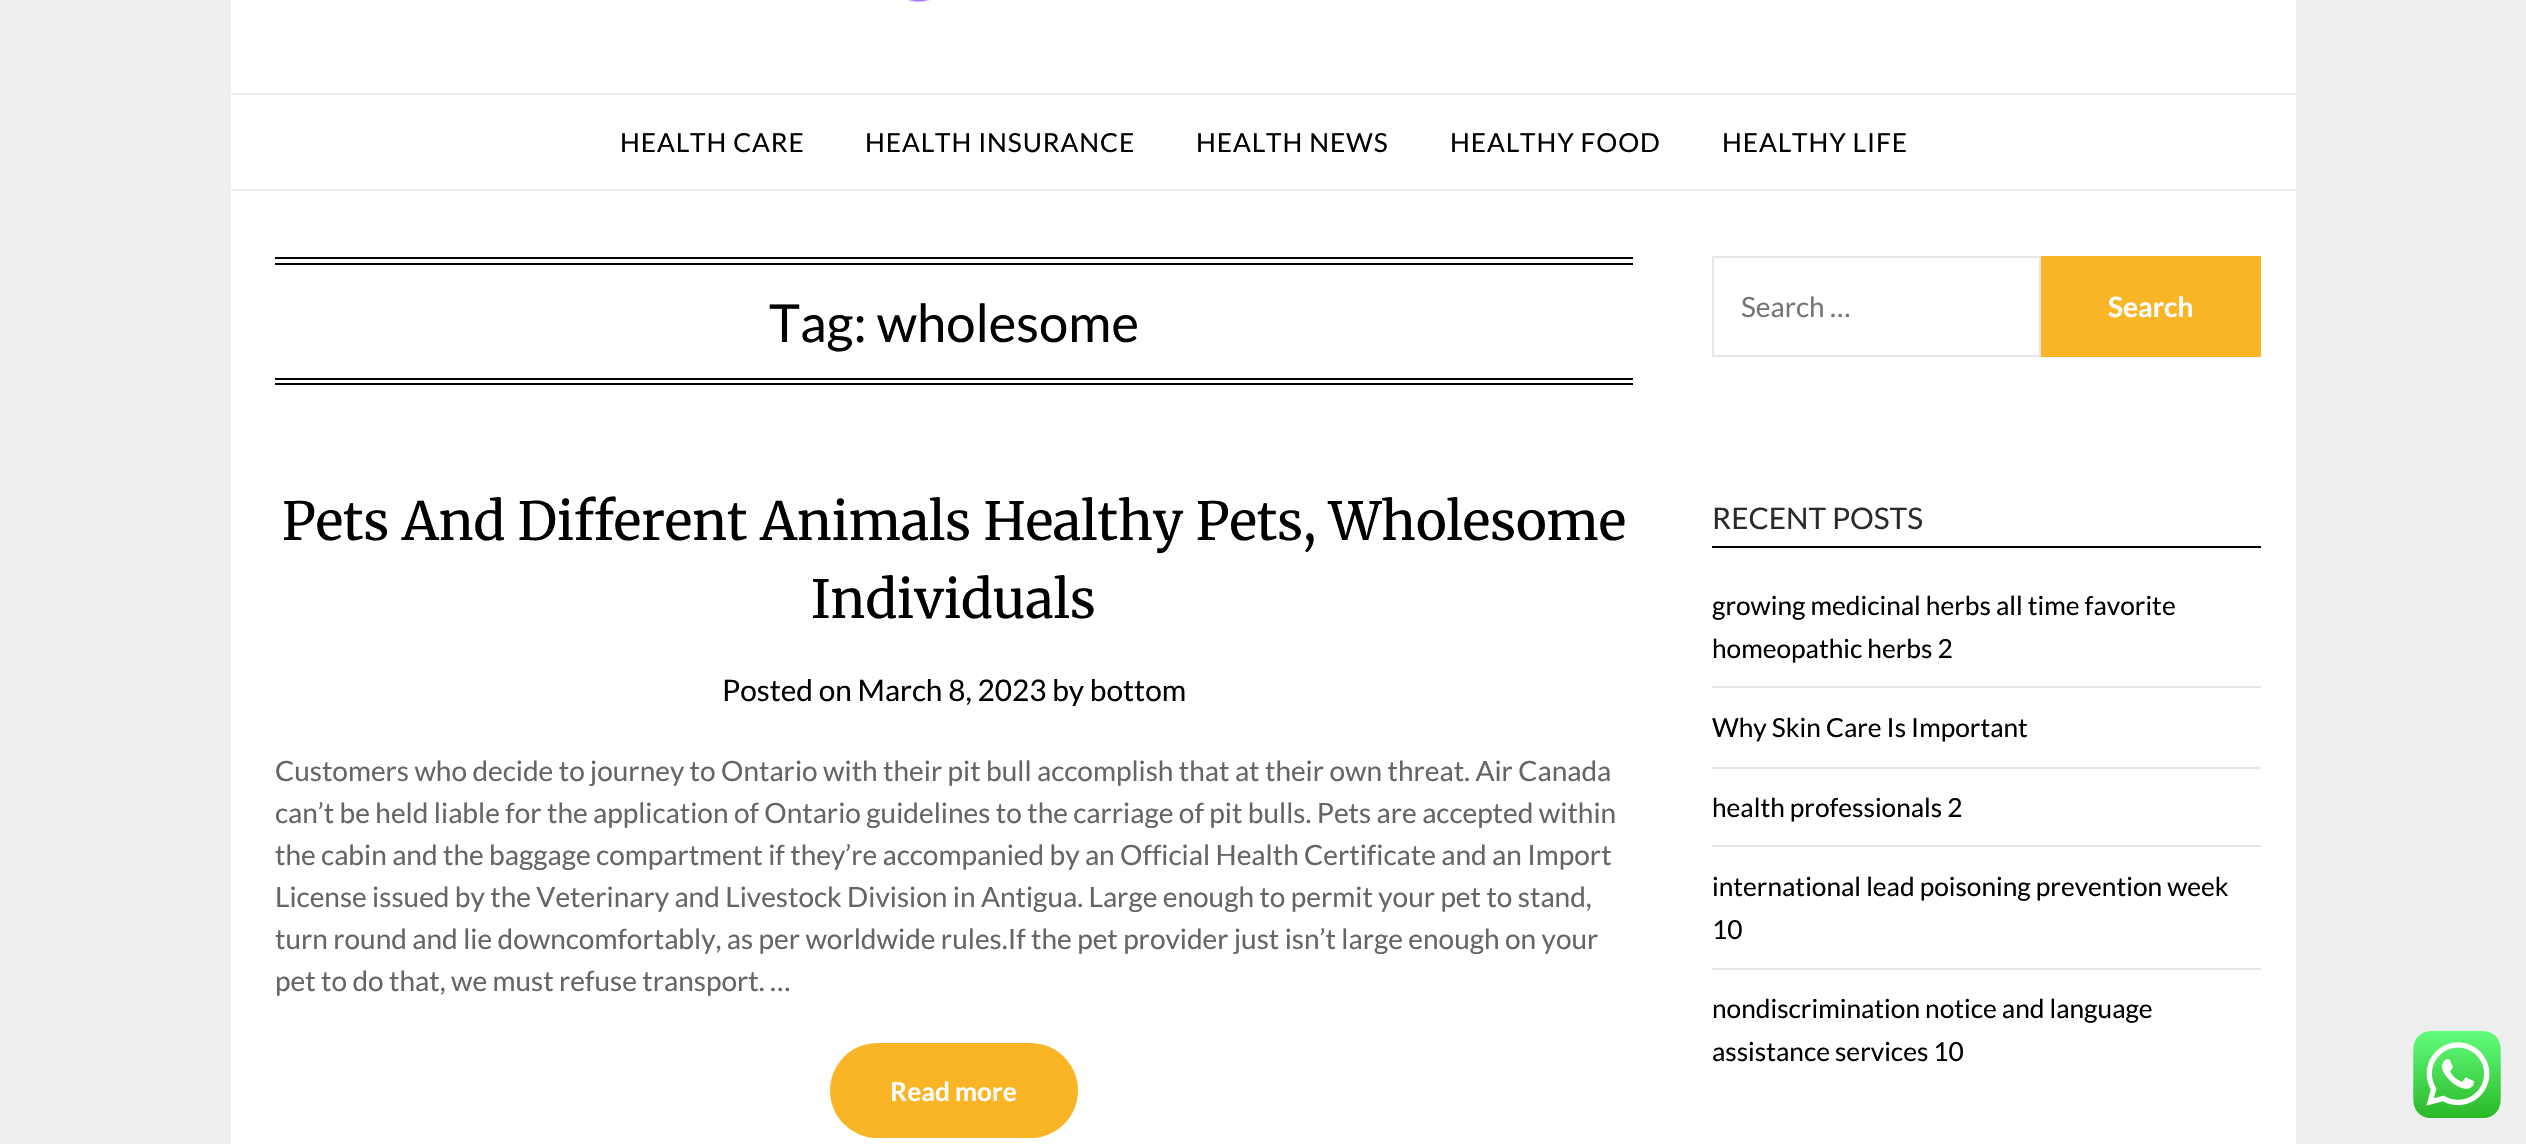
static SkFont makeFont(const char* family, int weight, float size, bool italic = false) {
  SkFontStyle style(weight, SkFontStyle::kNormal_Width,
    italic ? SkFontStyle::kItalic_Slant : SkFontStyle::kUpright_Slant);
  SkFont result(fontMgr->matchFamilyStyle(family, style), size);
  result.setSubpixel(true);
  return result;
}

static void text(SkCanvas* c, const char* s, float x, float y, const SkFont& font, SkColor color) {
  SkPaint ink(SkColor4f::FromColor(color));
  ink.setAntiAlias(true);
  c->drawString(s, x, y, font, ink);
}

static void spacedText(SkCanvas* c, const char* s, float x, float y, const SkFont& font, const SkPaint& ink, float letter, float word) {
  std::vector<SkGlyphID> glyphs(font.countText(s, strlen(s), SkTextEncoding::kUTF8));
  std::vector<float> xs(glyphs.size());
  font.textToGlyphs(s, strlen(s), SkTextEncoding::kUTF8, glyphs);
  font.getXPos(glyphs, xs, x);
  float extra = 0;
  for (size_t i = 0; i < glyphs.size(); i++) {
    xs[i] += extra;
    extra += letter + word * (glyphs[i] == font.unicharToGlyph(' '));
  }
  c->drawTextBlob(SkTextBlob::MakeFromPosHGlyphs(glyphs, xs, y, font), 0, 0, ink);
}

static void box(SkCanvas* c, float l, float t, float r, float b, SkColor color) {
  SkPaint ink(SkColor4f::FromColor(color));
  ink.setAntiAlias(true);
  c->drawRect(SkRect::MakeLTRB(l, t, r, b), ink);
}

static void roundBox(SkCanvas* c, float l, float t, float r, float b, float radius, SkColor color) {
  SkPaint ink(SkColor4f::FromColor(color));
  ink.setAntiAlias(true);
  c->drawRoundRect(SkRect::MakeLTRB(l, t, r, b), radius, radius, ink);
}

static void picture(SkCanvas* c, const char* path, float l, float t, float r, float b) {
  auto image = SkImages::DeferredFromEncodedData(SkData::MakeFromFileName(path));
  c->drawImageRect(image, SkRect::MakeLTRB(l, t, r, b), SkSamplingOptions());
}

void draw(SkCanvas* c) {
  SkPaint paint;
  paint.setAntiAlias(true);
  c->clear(0xffeeeeee);
  box(c, 231, 0, 2296, 93, 0xffffffff);
  picture(c, "img_01.png", 908, 0, 930, 3);
  box(c, 231, 95, 2296, 189, 0xffffffff);
  SkFont face1 = makeFont("Lato", 400, 26.25f);
  paint.setColor(0xff000000);
  spacedText(c, "HEALTH CARE", 620, 152, face1, paint, 0.9f, 0);
  spacedText(c, "HEALTH INSURANCE", 865, 152, face1, paint, 0.9f, 0);
  spacedText(c, "HEALTH NEWS", 1196, 152, face1, paint, 0.9f, 0);
  spacedText(c, "HEALTHY FOOD", 1450, 152, face1, paint, 0.9f, 0);
  spacedText(c, "HEALTHY LIFE", 1722, 152, face1, paint, 0.9f, 0);
  box(c, 231, 191, 2296, 1144, 0xffffffff);
  box(c, 275, 257, 1633, 259, 0xff000000);
  box(c, 275, 263, 1633, 265, 0xff000000);
  box(c, 275, 378, 1633, 380, 0xff000000);
  box(c, 275, 383, 1633, 385, 0xff000000);
  SkFont face2 = makeFont("Lato", 400, 52.5f);
  text(c, "Tag: wholesome", 769, 342, face2, 0xff000000);
  SkFont face3 = makeFont("Merriweather", 400, 52.5f);
  text(c, "Pets And Different Animals Healthy Pets, Wholesome", 282, 540, face3, 0xff000000);
  text(c, "Individuals", 811, 618, face3, 0xff000000);
  SkFont face4 = makeFont("Lato", 400, 29.75f);
  text(c, "Posted on March 8, 2023 by bottom", 722, 701, face4, 0xff000000);
  SkFont face5 = makeFont("Lato", 400, 28);
  text(c, "Customers who decide to journey to Ontario with their pit bull accomplish that at their own threat. Air Canada", 275, 781, face5, 0xff656565);
  text(c, "can’t be held liable for the application of Ontario guidelines to the carriage of pit bulls. Pets are accepted within", 275, 823, face5, 0xff656565);
  text(c, "the cabin and the baggage compartment if they’re accompanied by an Official Health Certificate and an Import", 275, 865, face5, 0xff656565);
  text(c, "License issued by the Veterinary and Livestock Division in Antigua. Large enough to permit your pet to stand,", 275, 907, face5, 0xff656565);
  text(c, "turn round and lie downcomfortably, as per worldwide rules.If the pet provider just isn’t large enough on your", 275, 949, face5, 0xff656565);
  text(c, "pet to do that, we must refuse transport. …", 275, 991, face5, 0xff656565);
  roundBox(c, 830, 1043, 1078, 1138, 47.5f, 0xfffab526);
  SkFont face6 = makeFont("Lato", 700, 26.25f);
  text(c, "Read more", 890, 1101, face6, 0xffffffff);
  paint.setStyle(SkPaint::kStroke_Style);
  paint.setStrokeWidth(2);
  paint.setColor(0xffe5e6e9);
  c->drawRect(SkRect::MakeLTRB(1713, 257, 2040, 356), paint);
  text(c, "Search …", 1741, 317, face5, 0xff757575);
  box(c, 2041, 256, 2261, 357, 0xfffab526);
  SkFont face7 = makeFont("Lato", 700, 28);
  text(c, "Search", 2108, 317, face7, 0xffffffff);
  box(c, 1712, 546, 2261, 548, 0xff000000);
  text(c, "RECENT POSTS", 1712, 529, face4, 0xff2b2b2b);
  box(c, 1712, 686, 2261, 688, 0xffe6e6e6);
  text(c, "growing medicinal herbs all time favorite", 1712, 615, face1, 0xff000000);
  text(c, "homeopathic herbs 2", 1712, 658, face1, 0xff000000);
  box(c, 1712, 767, 2261, 769, 0xffe6e6e6);
  text(c, "Why Skin Care Is Important", 1712, 737, face1, 0xff000000);
  box(c, 1712, 845, 2261, 847, 0xffe6e6e6);
  text(c, "health professionals 2", 1712, 817, face1, 0xff000000);
  box(c, 1712, 968, 2261, 970, 0xffe6e6e6);
  text(c, "international lead poisoning prevention week", 1712, 896, face1, 0xff000000);
  text(c, "10", 1712, 939, face1, 0xff000000);
  text(c, "nondiscrimination notice and language", 1712, 1018, face1, 0xff000000);
  text(c, "assistance services 10", 1712, 1061, face1, 0xff000000);
  picture(c, "img_02.png", 2413, 1031, 2501, 1118);
}
